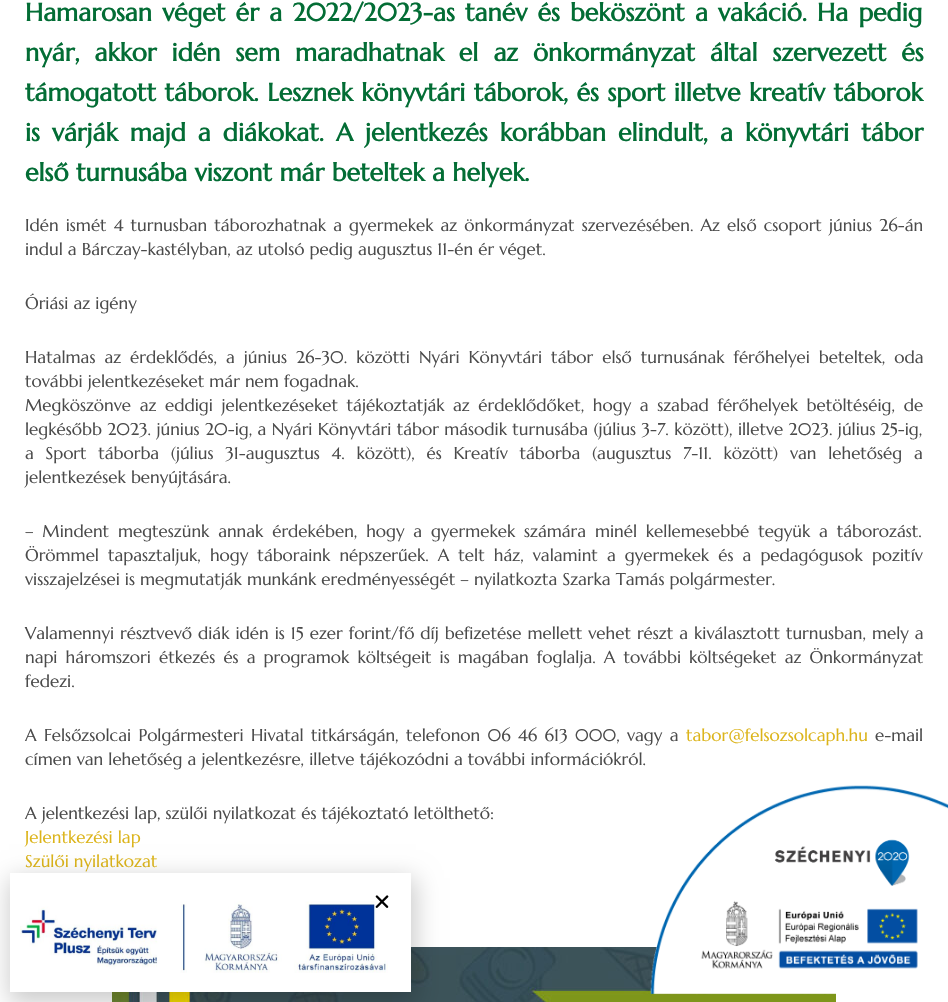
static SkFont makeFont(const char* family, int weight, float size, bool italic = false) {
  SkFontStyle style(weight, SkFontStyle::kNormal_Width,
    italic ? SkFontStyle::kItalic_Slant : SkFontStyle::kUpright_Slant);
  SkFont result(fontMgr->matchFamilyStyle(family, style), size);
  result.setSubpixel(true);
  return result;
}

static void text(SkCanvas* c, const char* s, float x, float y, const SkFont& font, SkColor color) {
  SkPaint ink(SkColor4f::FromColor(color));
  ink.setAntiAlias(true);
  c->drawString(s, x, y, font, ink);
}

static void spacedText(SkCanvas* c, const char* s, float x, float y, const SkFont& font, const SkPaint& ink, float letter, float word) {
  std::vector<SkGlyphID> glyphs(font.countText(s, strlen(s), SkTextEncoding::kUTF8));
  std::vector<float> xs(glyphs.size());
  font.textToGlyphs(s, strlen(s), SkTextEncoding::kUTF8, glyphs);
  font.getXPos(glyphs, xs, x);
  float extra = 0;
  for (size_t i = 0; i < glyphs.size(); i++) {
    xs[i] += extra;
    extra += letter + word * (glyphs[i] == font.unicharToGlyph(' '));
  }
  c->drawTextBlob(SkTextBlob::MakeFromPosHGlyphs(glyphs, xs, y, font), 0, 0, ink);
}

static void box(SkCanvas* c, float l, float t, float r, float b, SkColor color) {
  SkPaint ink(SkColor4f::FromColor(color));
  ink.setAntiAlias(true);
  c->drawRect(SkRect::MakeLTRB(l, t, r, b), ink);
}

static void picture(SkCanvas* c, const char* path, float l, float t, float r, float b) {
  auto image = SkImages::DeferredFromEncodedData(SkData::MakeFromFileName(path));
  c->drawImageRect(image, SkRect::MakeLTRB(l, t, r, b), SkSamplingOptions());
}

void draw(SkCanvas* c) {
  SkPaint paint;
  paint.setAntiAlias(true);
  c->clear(0xffffffff);
  SkFont face1 = makeFont("Marcellus", 700, 25);
  paint.setColor(0xff036d35);
  spacedText(c, "Hamarosan véget ér a 2022/2023-as tanév és beköszönt a vakáció. Ha pedig", 25, 21, face1, paint, 0, 2.75f);
  spacedText(c, "nyár, akkor idén sem maradhatnak el az önkormányzat által szervezett és", 25, 61, face1, paint, 0, 7.5f);
  spacedText(c, "támogatott táborok. Lesznek könyvtári táborok, és sport illetve kreatív táborok", 25, 101, face1, paint, 0, 1);
  spacedText(c, "is várják majd a diákokat. A jelentkezés korábban elindult, a könyvtári tábor", 25, 141, face1, paint, 0, 4.6f);
  text(c, "első turnusába viszont már beteltek a helyek.", 25, 181, face1, 0xff036d35);
  SkFont face2 = makeFont("Marcellus", 400, 17);
  paint.setColor(0xff4b4b4b);
  spacedText(c, "Idén ismét 4 turnusban táborozhatnak a gyermekek az önkormányzat szervezésében. Az első csoport június 26-án", 25, 231, face2, paint, 0, 2);
  text(c, "indul a Bárczay-kastélyban, az utolsó pedig augusztus 11-én ér véget.", 25, 255, face2, 0xff4b4b4b);
  text(c, "Óriási az igény", 25, 309, face2, 0xff4b4b4b);
  spacedText(c, "Hatalmas az érdeklődés, a június 26-30. közötti Nyári Könyvtári tábor első turnusának férőhelyei beteltek, oda", 25, 363, face2, paint, 0, 3.9f);
  text(c, "további jelentkezéseket már nem fogadnak.", 25, 387, face2, 0xff4b4b4b);
  spacedText(c, "Megköszönve az eddigi jelentkezéseket tájékoztatják az érdeklődőket, hogy a szabad férőhelyek betöltéséig, de", 25, 411, face2, paint, 0, 3.5f);
  spacedText(c, "legkésőbb 2023. június 20-ig, a Nyári Könyvtári tábor második turnusába (július 3-7. között), illetve 2023. július 25-ig,", 25, 435, face2, paint, 0, 0.3f);
  spacedText(c, "a Sport táborba (július 31-augusztus 4. között), és Kreatív táborba (augusztus 7-11. között) van lehetőség a", 25, 459, face2, paint, 0, 6.6f);
  text(c, "jelentkezések benyújtására.", 25, 483, face2, 0xff4b4b4b);
  spacedText(c, "– Mindent megteszünk annak érdekében, hogy a gyermekek számára minél kellemesebbé tegyük a táborozást.", 25, 537, face2, paint, 0, 3.75f);
  spacedText(c, "Örömmel tapasztaljuk, hogy táboraink népszerűek. A telt ház, valamint a gyermekek és a pedagógusok pozitív", 25, 561, face2, paint, 0, 4);
  text(c, "visszajelzései is megmutatják munkánk eredményességét – nyilatkozta Szarka Tamás polgármester.", 25, 585, face2, 0xff4b4b4b);
  spacedText(c, "Valamennyi résztvevő diák idén is 15 ezer forint/fő díj befizetése mellett vehet részt a kiválasztott turnusban, mely a", 25, 639, face2, paint, 0, 0.9f);
  spacedText(c, "napi háromszori étkezés és a programok költségeit is magában foglalja. A további költségeket az Önkormányzat", 25, 663, face2, paint, 0, 3);
  text(c, "fedezi.", 25, 687, face2, 0xff4b4b4b);
  spacedText(c, "A Felsőzsolcai Polgármesteri Hivatal titkárságán, telefonon 06 46 613 000, vagy a", 25, 741, face2, paint, 0, 2.25f);
  text(c, "tabor@felsozsolcaph.hu", 686, 741, face2, 0xffdcb41a);
  text(c, "e-mail", 875, 741, face2, 0xff4b4b4b);
  text(c, "címen van lehetőség a jelentkezésre, illetve tájékozódni a további információkról.", 25, 765, face2, 0xff4b4b4b);
  text(c, "A jelentkezési lap, szülői nyilatkozat és tájékoztató letölthető:", 25, 819, face2, 0xff4b4b4b);
  text(c, "Jelentkezési lap", 25, 843, face2, 0xffdcb41a);
  text(c, "Szülői nyilatkozat", 25, 867, face2, 0xffdcb41a);
  picture(c, "img_01.png", 112, 947, 836, 1002);
  paint.setColor(0x33000000);
  paint.setMaskFilter(SkMaskFilter::MakeBlur(kNormal_SkBlurStyle, 11.5f));
  c->drawRect(SkRect::MakeLTRB(9, 878, 416, 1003), paint);
  paint.setMaskFilter(nullptr);
  box(c, 10, 873, 411, 992, 0xffffffff);
  picture(c, "img_03.png", 20, 901, 388, 973);
  picture(c, "img_02.png", 375, 895, 389, 908);
  picture(c, "img_04.png", 650, 785, 948, 994);
}
